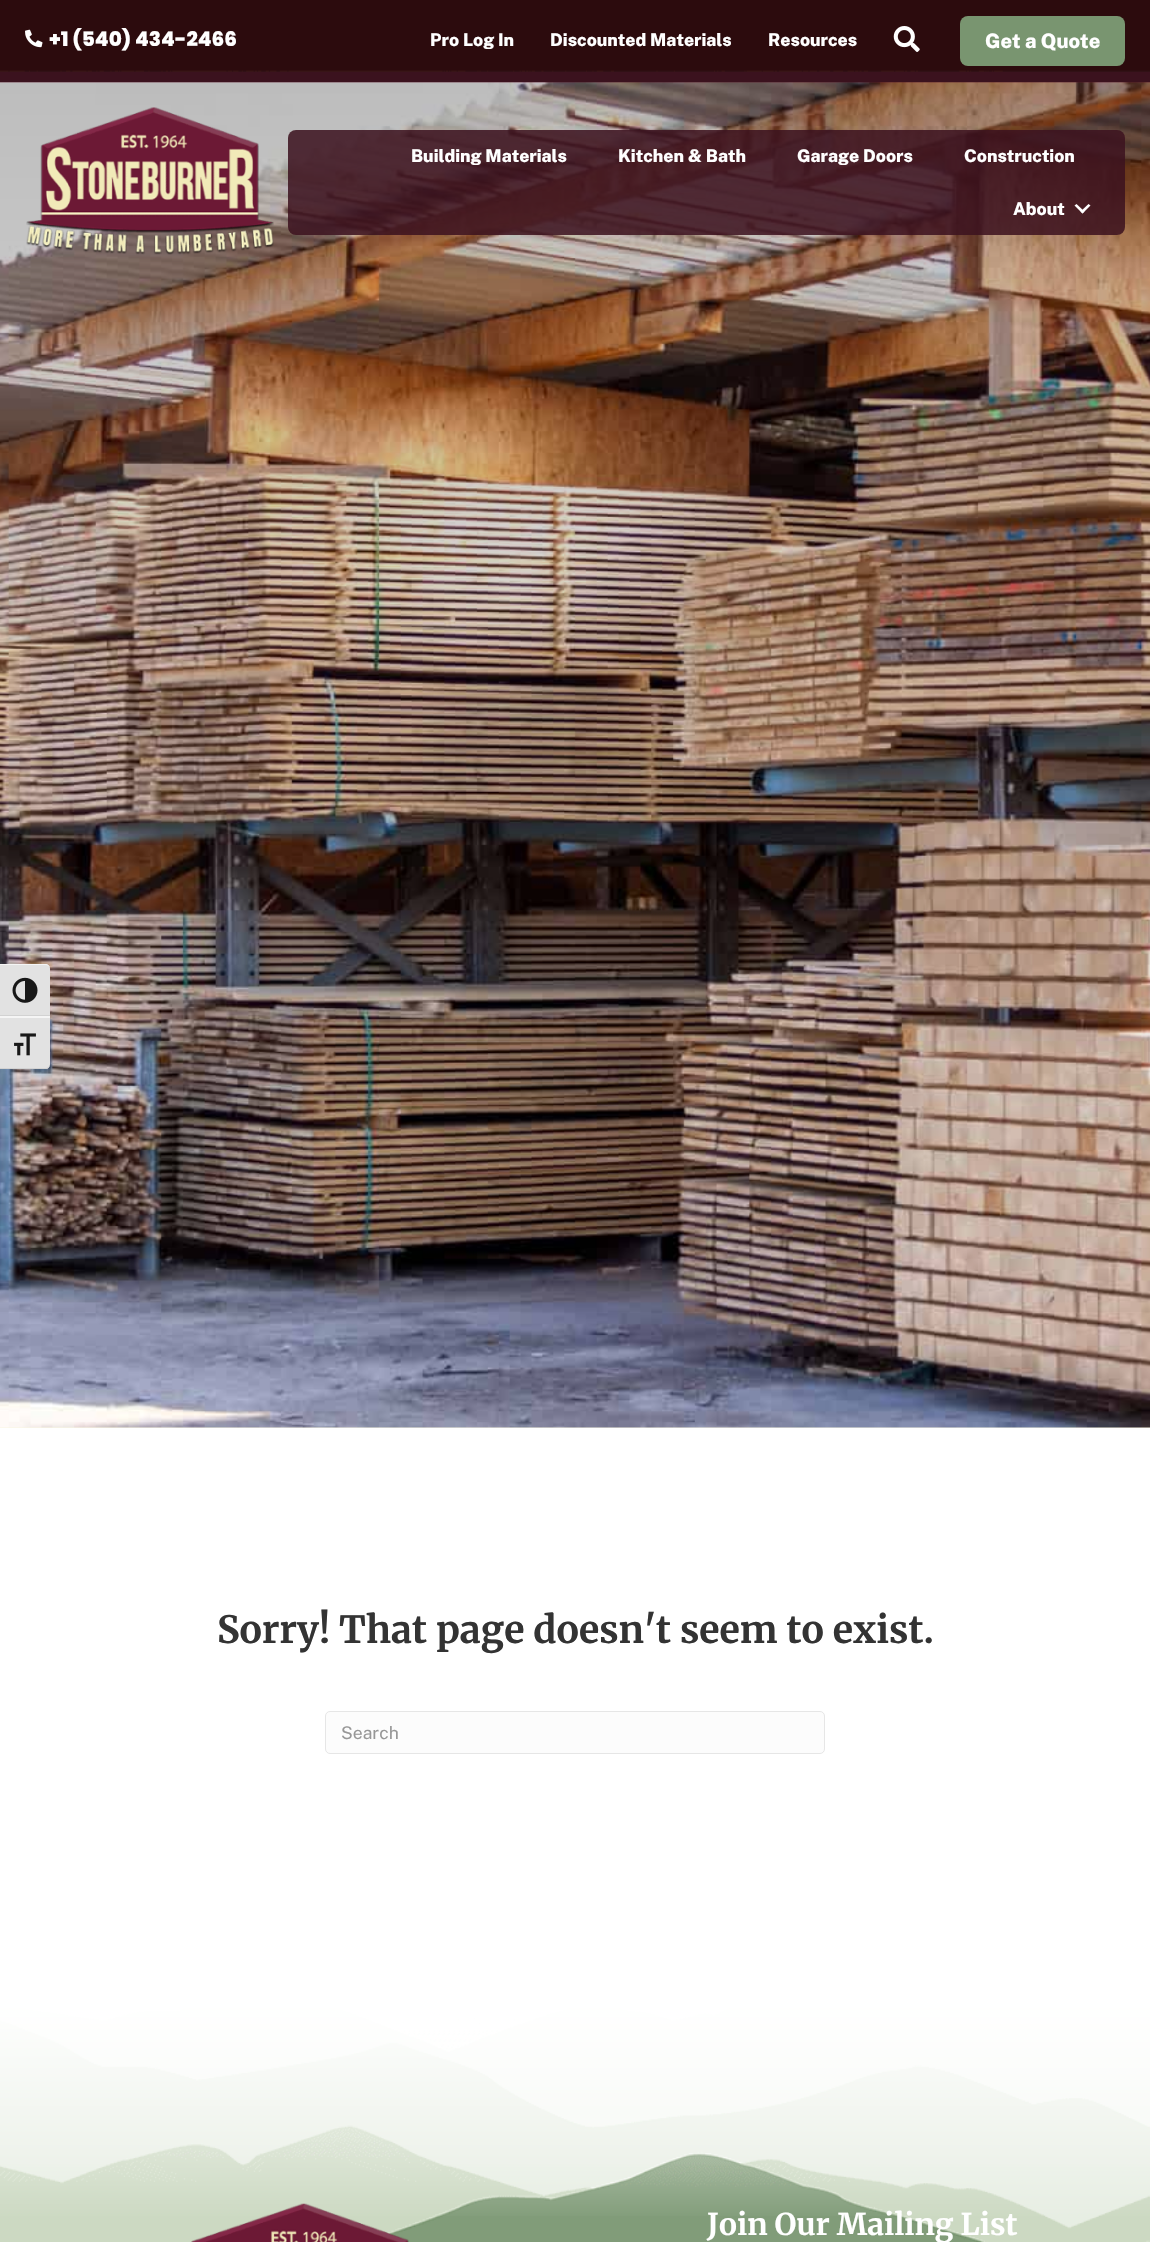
static SkFont makeFont(const char* family, int weight, float size, bool italic = false) {
  SkFontStyle style(weight, SkFontStyle::kNormal_Width,
    italic ? SkFontStyle::kItalic_Slant : SkFontStyle::kUpright_Slant);
  SkFont result(fontMgr->matchFamilyStyle(family, style), size);
  result.setSubpixel(true);
  return result;
}

static void text(SkCanvas* c, const char* s, float x, float y, const SkFont& font, SkColor color) {
  SkPaint ink(SkColor4f::FromColor(color));
  ink.setAntiAlias(true);
  c->drawString(s, x, y, font, ink);
}

static void box(SkCanvas* c, float l, float t, float r, float b, SkColor color) {
  SkPaint ink(SkColor4f::FromColor(color));
  ink.setAntiAlias(true);
  c->drawRect(SkRect::MakeLTRB(l, t, r, b), ink);
}

static void roundBox(SkCanvas* c, float l, float t, float r, float b, float radius, SkColor color) {
  SkPaint ink(SkColor4f::FromColor(color));
  ink.setAntiAlias(true);
  c->drawRoundRect(SkRect::MakeLTRB(l, t, r, b), radius, radius, ink);
}

static void picture(SkCanvas* c, const char* path, float l, float t, float r, float b) {
  auto image = SkImages::DeferredFromEncodedData(SkData::MakeFromFileName(path));
  c->drawImageRect(image, SkRect::MakeLTRB(l, t, r, b), SkSamplingOptions());
}

void draw(SkCanvas* c) {
  SkPaint paint;
  paint.setAntiAlias(true);
  c->clear(0xffffffff);
  box(c, 0, 70, 1150, 83, 0xff3b121e);
  box(c, 0, 1427, 1150, 1428, 0xfff8f6e1);
  picture(c, "img_06.png", 0, 82, 1150, 1428);
  {
    const SkColor colors[] = {0x40000000, 0x00000000};
    const float stops[] = {0, 1};
    const SkPoint ends[] = {{575, 83}, {575, 1428}};
    paint.setShader(SkGradientShader::MakeLinear(ends, colors, stops, 2, SkTileMode::kClamp));
    paint.setAlpha(255);
  }
  c->drawRect(SkRect::MakeLTRB(0, 83, 1150, 1312), paint);
  paint.setShader(nullptr);
  paint.setColor(0xffe2e2e2);
  c->drawPath(SkPathBuilder().moveTo(0, 964).lineTo(45, 964).cubicTo(48, 964, 50, 966, 50, 969).lineTo(50, 1016).lineTo(0, 1016).close().detach(), paint);
  paint.setColor(0xfff5f5f5);
  c->drawPath(SkPathBuilder().moveTo(0, 965).lineTo(45, 965).cubicTo(48, 965, 50, 967, 50, 969).cubicTo(50, 966, 48, 964, 45, 964).lineTo(0, 964).close().detach(), paint);
  box(c, 0, 1015, 50, 1016, 0xffd2d2d2);
  picture(c, "img_01.png", 12, 977, 38, 1003);
  paint.setColor(0xffe2e2e2);
  c->drawPath(SkPathBuilder().moveTo(0, 1016).lineTo(50, 1016).lineTo(50, 1064).cubicTo(50, 1067, 48, 1069, 45, 1069).lineTo(0, 1069).close().detach(), paint);
  box(c, 0, 1016, 50, 1018, 0xfff5f5f5);
  paint.setColor(0xffd2d2d2);
  c->drawPath(SkPathBuilder().moveTo(47, 1069).cubicTo(49, 1068, 50, 1066, 50, 1064).cubicTo(50, 1066, 48, 1068, 45, 1068).lineTo(0, 1068).lineTo(0, 1069).close().detach(), paint);
  picture(c, "img_02.png", 14, 1033, 36, 1056);
  picture(c, "img_03.png", 0, 0, 1150, 72);
  picture(c, "img_04.png", 25, 29, 43, 48);
  SkFont face1 = makeFont("Poppins", 800, 20);
  text(c, "+1 (540) 434-2466", 49, 46, face1, 0xffffffff);
  SkFont face2 = makeFont("Public Sans", 800, 17.5f);
  text(c, "Pro Log In", 430, 46, face2, 0xffffffff);
  text(c, "Discounted Materials", 550, 46, face2, 0xffffffff);
  text(c, "Resources", 768, 46, face2, 0xffffffff);
  picture(c, "img_05.png", 893, 26, 920, 52);
  roundBox(c, 960, 16, 1125, 66, 8, 0xff799570);
  SkFont face3 = makeFont("Public Sans", 800, 20);
  text(c, "Get a Quote", 985, 48, face3, 0xffffffff);
  picture(c, "img_07.png", 26, 107, 274, 255);
  roundBox(c, 288, 130, 1125, 235, 8, 0xdb3b121e);
  text(c, "Building Materials", 411, 162, face2, 0xffffffff);
  text(c, "Kitchen & Bath", 618, 162, face2, 0xffffffff);
  text(c, "Garage Doors", 797, 162, face2, 0xffffffff);
  text(c, "Construction", 964, 162, face2, 0xffffffff);
  text(c, "About", 1013, 215, face2, 0xffffffff);
  paint.setColor(0xffffffff);
  c->drawPath(SkPathBuilder().moveTo(1088.5f, 204).lineTo(1090.5f, 205.5f).lineTo(1082.5f, 213.5f).lineTo(1080.5f, 211.5f).close().detach(), paint);
  c->drawPath(SkPathBuilder().moveTo(1076.5f, 204).lineTo(1084.5f, 211.5f).lineTo(1082.5f, 213.5f).lineTo(1074.5f, 205.5f).close().detach(), paint);
  SkFont face4 = makeFont("Merriweather", 300, 37.5f);
  text(c, "Sorry! That page doesn't seem to exist.", 217, 1643, face4, 0xff333333);
  paint.setColor(0xfffcfcfc);
  c->drawRoundRect(SkRect::MakeLTRB(325.5f, 1711.5f, 824.5f, 1753.5f), 4.5f, 4.5f, paint);
  paint.setStyle(SkPaint::kStroke_Style);
  paint.setStrokeWidth(1);
  paint.setColor(0xffe6e6e6);
  c->drawRoundRect(SkRect::MakeLTRB(325.5f, 1711.5f, 824.5f, 1753.5f), 4.5f, 4.5f, paint);
  SkFont face5 = makeFont("Public Sans", 400, 17.5f);
  text(c, "Search", 341, 1739, face5, 0xff979797);
  picture(c, "img_08.png", 0, 1992, 1150, 2242);
  paint.setStyle(SkPaint::kFill_Style);
  {
    const SkColor colors[] = {0xffffffff, 0x00ffffff};
    const float stops[] = {0, 0.3f};
    const SkPoint ends[] = {{575, 1991}, {575, 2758}};
    paint.setShader(SkGradientShader::MakeLinear(ends, colors, stops, 2, SkTileMode::kClamp));
    paint.setAlpha(255);
  }
  c->drawRect(SkRect::MakeLTRB(0, 1992, 1150, 2216), paint);
  picture(c, "img_09.png", 191, 2203, 409, 2242);
  SkFont face6 = makeFont("Merriweather", 300, 30);
  text(c, "Join Our Mailing List", 707, 2235, face6, 0xffffffff);
}
